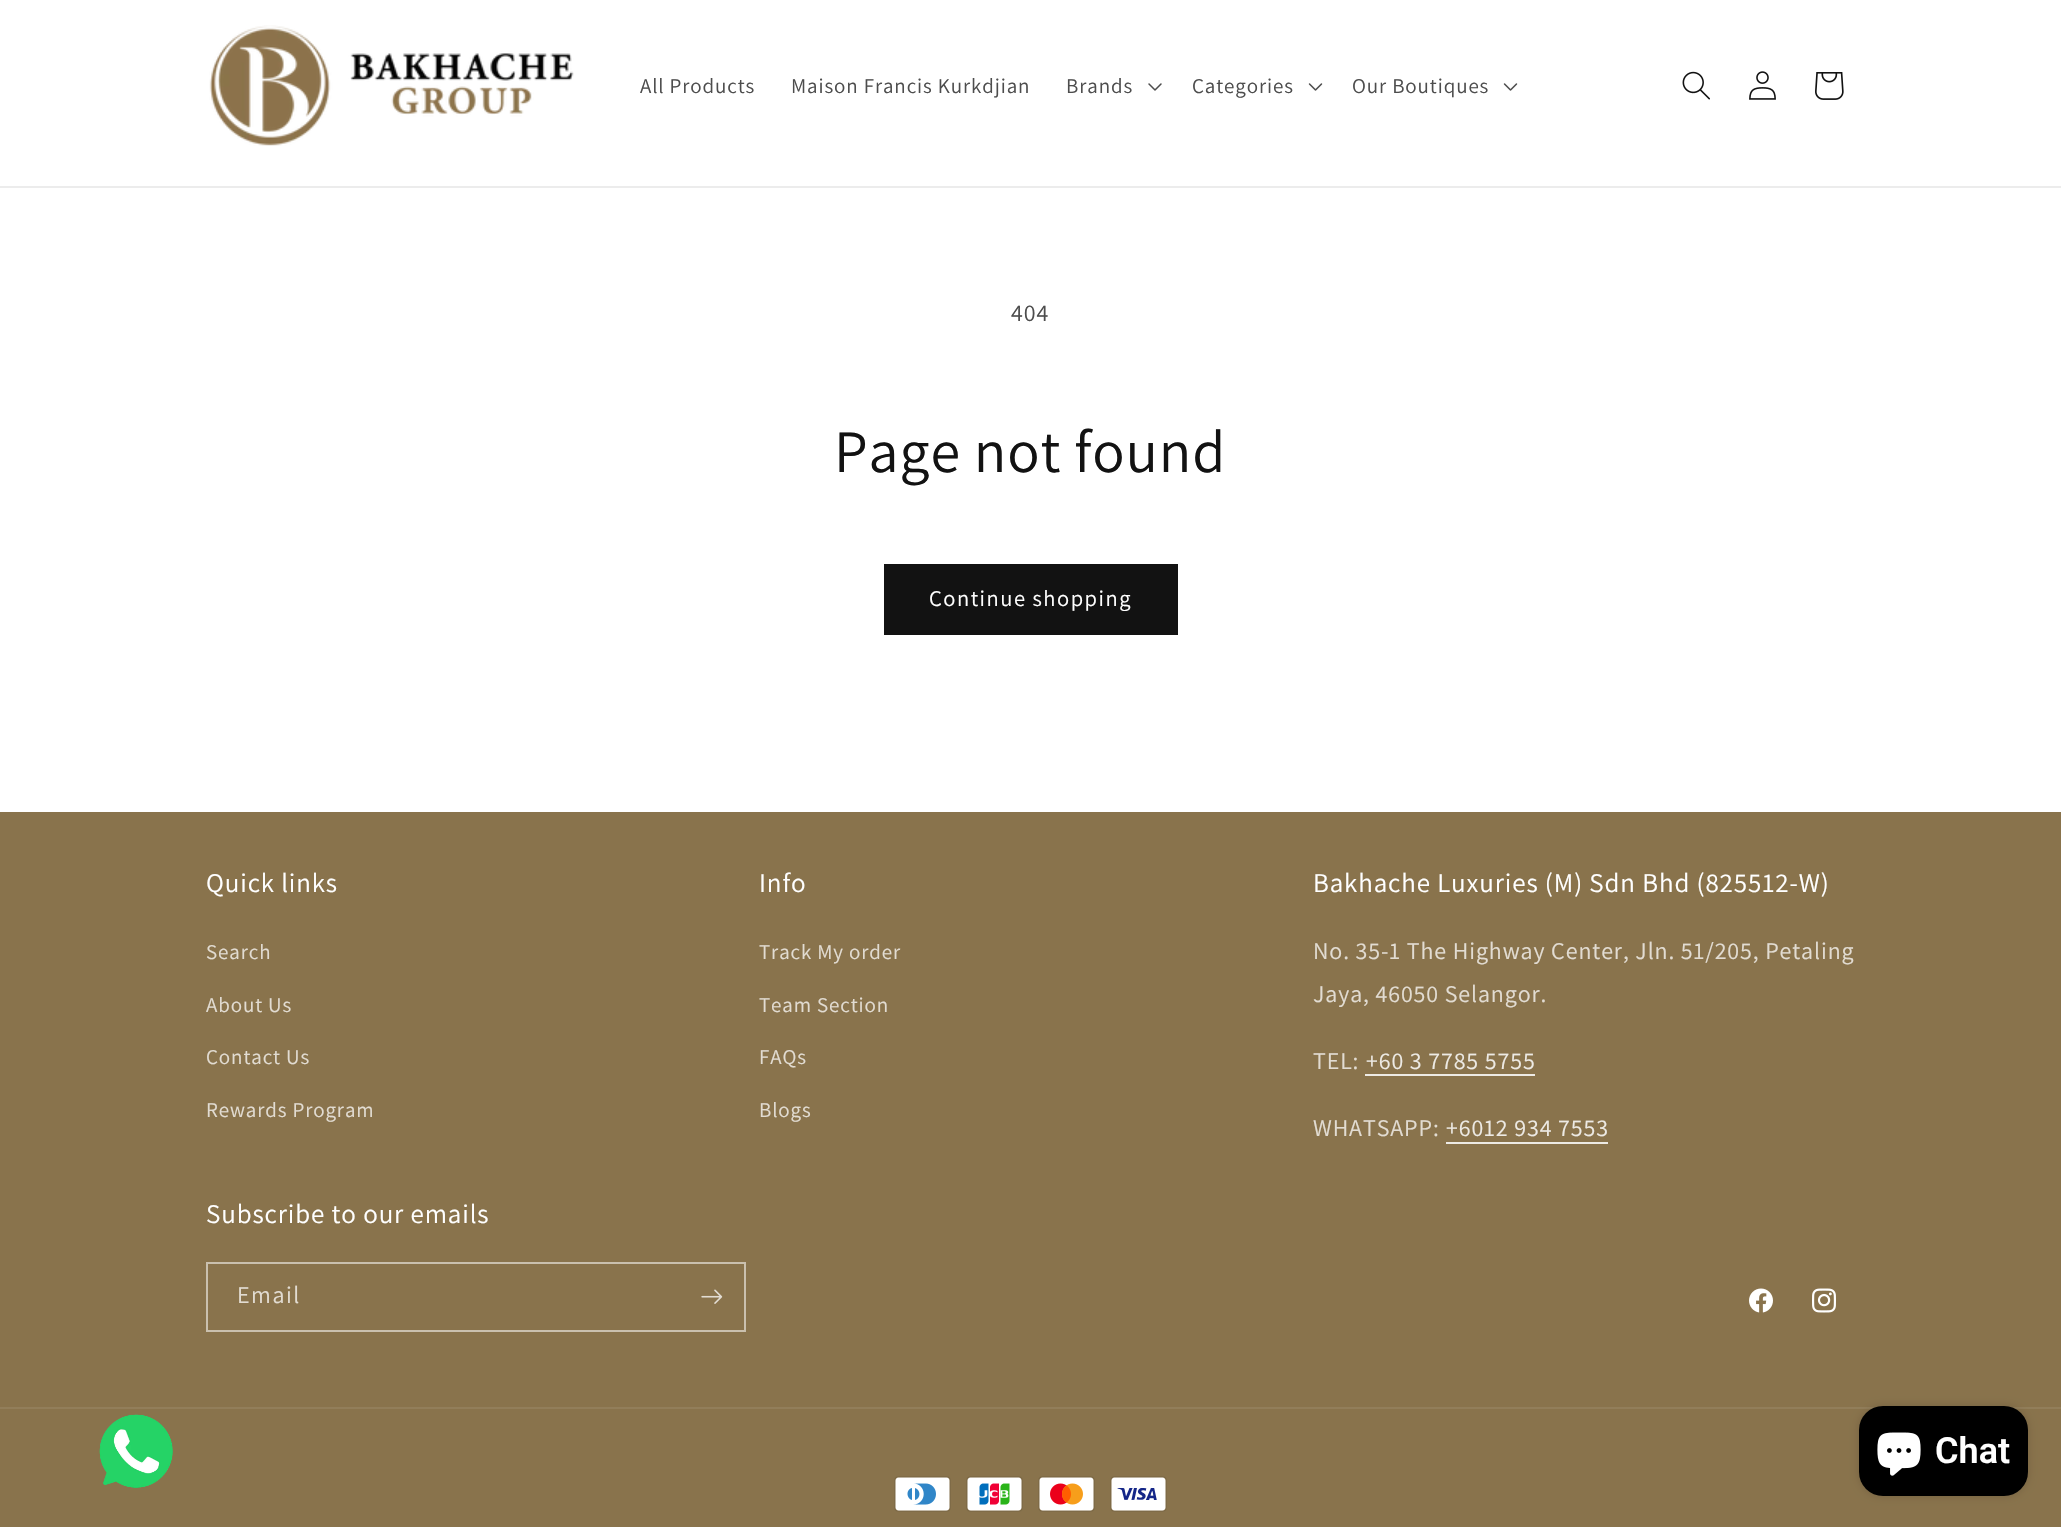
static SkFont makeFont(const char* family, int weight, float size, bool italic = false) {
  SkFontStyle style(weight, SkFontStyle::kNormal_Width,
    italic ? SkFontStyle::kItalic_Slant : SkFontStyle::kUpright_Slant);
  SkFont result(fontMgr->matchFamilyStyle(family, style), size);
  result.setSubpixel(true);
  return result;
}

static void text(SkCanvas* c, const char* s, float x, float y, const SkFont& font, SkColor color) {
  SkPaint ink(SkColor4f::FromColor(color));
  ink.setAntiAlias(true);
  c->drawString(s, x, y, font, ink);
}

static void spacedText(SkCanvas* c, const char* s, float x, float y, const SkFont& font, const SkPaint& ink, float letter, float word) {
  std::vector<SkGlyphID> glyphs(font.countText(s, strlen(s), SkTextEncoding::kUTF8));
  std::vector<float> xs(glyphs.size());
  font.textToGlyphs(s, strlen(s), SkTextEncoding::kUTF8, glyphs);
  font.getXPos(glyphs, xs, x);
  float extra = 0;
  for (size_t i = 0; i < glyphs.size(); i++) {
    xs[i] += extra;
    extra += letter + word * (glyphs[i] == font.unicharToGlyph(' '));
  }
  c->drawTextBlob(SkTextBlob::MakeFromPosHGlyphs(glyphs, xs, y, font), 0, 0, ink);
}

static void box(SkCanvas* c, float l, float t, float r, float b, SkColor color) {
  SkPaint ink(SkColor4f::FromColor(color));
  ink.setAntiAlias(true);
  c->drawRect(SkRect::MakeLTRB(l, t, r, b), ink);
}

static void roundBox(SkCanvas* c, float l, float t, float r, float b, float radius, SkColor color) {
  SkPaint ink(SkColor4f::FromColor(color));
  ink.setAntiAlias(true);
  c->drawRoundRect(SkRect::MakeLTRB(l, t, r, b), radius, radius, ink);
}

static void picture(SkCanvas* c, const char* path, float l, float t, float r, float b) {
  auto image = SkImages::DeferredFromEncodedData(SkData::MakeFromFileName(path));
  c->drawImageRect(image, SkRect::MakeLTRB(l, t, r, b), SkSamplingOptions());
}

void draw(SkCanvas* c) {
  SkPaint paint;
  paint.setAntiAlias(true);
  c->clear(0xffffffff);
  box(c, 0, 186, 2061, 188, 0xffececec);
  picture(c, "img_01.png", 209, 25, 574, 146);
  SkFont face1 = makeFont("Assistant", 400, 21);
  paint.setColor(0xff4d4d4d);
  spacedText(c, "All Products", 640, 93, face1, paint, 0.9f, 0);
  spacedText(c, "Maison Francis Kurkdjian", 791, 93, face1, paint, 0.9f, 0);
  spacedText(c, "Brands", 1066, 93, face1, paint, 0.9f, 0);
  picture(c, "img_02.png", 1148, 83, 1162, 91);
  spacedText(c, "Categories", 1192, 93, face1, paint, 0.9f, 0);
  picture(c, "img_03.png", 1308, 83, 1323, 91);
  spacedText(c, "Our Boutiques", 1352, 93, face1, paint, 0.9f, 0);
  picture(c, "img_03.png", 1503, 83, 1518, 91);
  picture(c, "img_04.png", 1682, 71, 1710, 100);
  picture(c, "img_05.png", 1749, 71, 1776, 100);
  picture(c, "img_06.png", 1815, 72, 1844, 100);
  SkFont face2 = makeFont("Assistant", 400, 24);
  spacedText(c, "404", 1011, 321, face2, paint, 0.9f, 0);
  SkFont face3 = makeFont("Assistant", 400, 60);
  paint.setColor(0xff121212);
  spacedText(c, "Page not found", 834, 472, face3, paint, 0.9f, 0);
  box(c, 884, 564, 1178, 635, 0xff121212);
  SkFont face4 = makeFont("Assistant", 400, 22.5f);
  paint.setColor(0xffffffff);
  spacedText(c, "Continue shopping", 929, 606, face4, paint, 1.5f, 0);
  box(c, 0, 812, 2061, 1527, 0xff89734c);
  SkFont face5 = makeFont("Assistant", 400, 27);
  spacedText(c, "Quick links", 206, 892, face5, paint, 0.9f, 0);
  paint.setColor(0xffe2dcd2);
  spacedText(c, "Search", 206, 959, face1, paint, 0.9f, 0);
  spacedText(c, "About Us", 206, 1012, face1, paint, 0.9f, 0);
  spacedText(c, "Contact Us", 206, 1064, face1, paint, 0.9f, 0);
  spacedText(c, "Rewards Program", 206, 1117, face1, paint, 0.9f, 0);
  paint.setColor(0xffffffff);
  spacedText(c, "Info", 759, 892, face5, paint, 0.9f, 0);
  paint.setColor(0xffe2dcd2);
  spacedText(c, "Track My order", 759, 959, face1, paint, 0.9f, 0);
  spacedText(c, "Team Section", 759, 1012, face1, paint, 0.9f, 0);
  spacedText(c, "FAQs", 759, 1064, face1, paint, 0.9f, 0);
  spacedText(c, "Blogs", 759, 1117, face1, paint, 0.9f, 0);
  paint.setColor(0xffffffff);
  spacedText(c, "Bakhache Luxuries (M) Sdn Bhd (825512-W)", 1313, 892, face5, paint, 0.9f, 0);
  paint.setColor(0xffe2dcd2);
  spacedText(c, "No. 35-1 The Highway Center, Jln. 51/205, Petaling", 1313, 959, face2, paint, 0.9f, 0);
  spacedText(c, "Jaya, 46050 Selangor.", 1313, 1002, face2, paint, 0.9f, 0);
  spacedText(c, "TEL:", 1313, 1069, face2, paint, 0.9f, 0);
  paint.setColor(0xffedeae4);
  spacedText(c, "+60 3 7785 5755", 1366, 1069, face2, paint, 0.9f, 0);
  box(c, 1365, 1074, 1535, 1076, 0xffedeae4);
  paint.setColor(0xffe2dcd2);
  spacedText(c, "WHATSAPP:", 1313, 1136, face2, paint, 0.9f, 0);
  paint.setColor(0xffedeae4);
  spacedText(c, "+6012 934 7553", 1446, 1136, face2, paint, 0.9f, 0);
  box(c, 1446, 1142, 1608, 1144, 0xffedeae4);
  paint.setColor(0xffffffff);
  spacedText(c, "Subscribe to our emails", 206, 1223, face5, paint, 0.9f, 0);
  paint.setStyle(SkPaint::kStroke_Style);
  paint.setStrokeWidth(2);
  paint.setColor(0xffcac0ae);
  c->drawRect(SkRect::MakeLTRB(207, 1263, 745, 1331), paint);
  paint.setStyle(SkPaint::kFill_Style);
  paint.setColor(0xffe2dcd2);
  spacedText(c, "Email", 237, 1303, face2, paint, 1.5f, 0);
  picture(c, "img_07.png", 701, 1289, 723, 1304);
  picture(c, "img_08.png", 1749, 1288, 1773, 1313);
  picture(c, "img_09.png", 1812, 1288, 1836, 1313);
  box(c, 0, 1407, 2061, 1409, 0xff927e5a);
  picture(c, "img_10.png", 894, 1476, 951, 1512);
  picture(c, "img_11.png", 966, 1476, 1023, 1512);
  picture(c, "img_12.png", 1038, 1476, 1095, 1512);
  picture(c, "img_13.png", 1110, 1476, 1167, 1512);
  picture(c, "img_14.png", 99, 1414, 173, 1488);
  paint.setColor(0x26000000);
  paint.setMaskFilter(SkMaskFilter::MakeBlur(kNormal_SkBlurStyle, 4));
  c->drawRoundRect(SkRect::MakeLTRB(1859, 1406, 2028, 1496), 24, 24, paint);
  paint.setMaskFilter(nullptr);
  roundBox(c, 1859, 1406, 2028, 1496, 24, 0xff000000);
  picture(c, "img_15.png", 1877, 1432, 1921, 1476);
  SkFont face6 = makeFont("Roboto", 600, 36);
  text(c, "Chat", 1935, 1463, face6, 0xffffffff);
}
